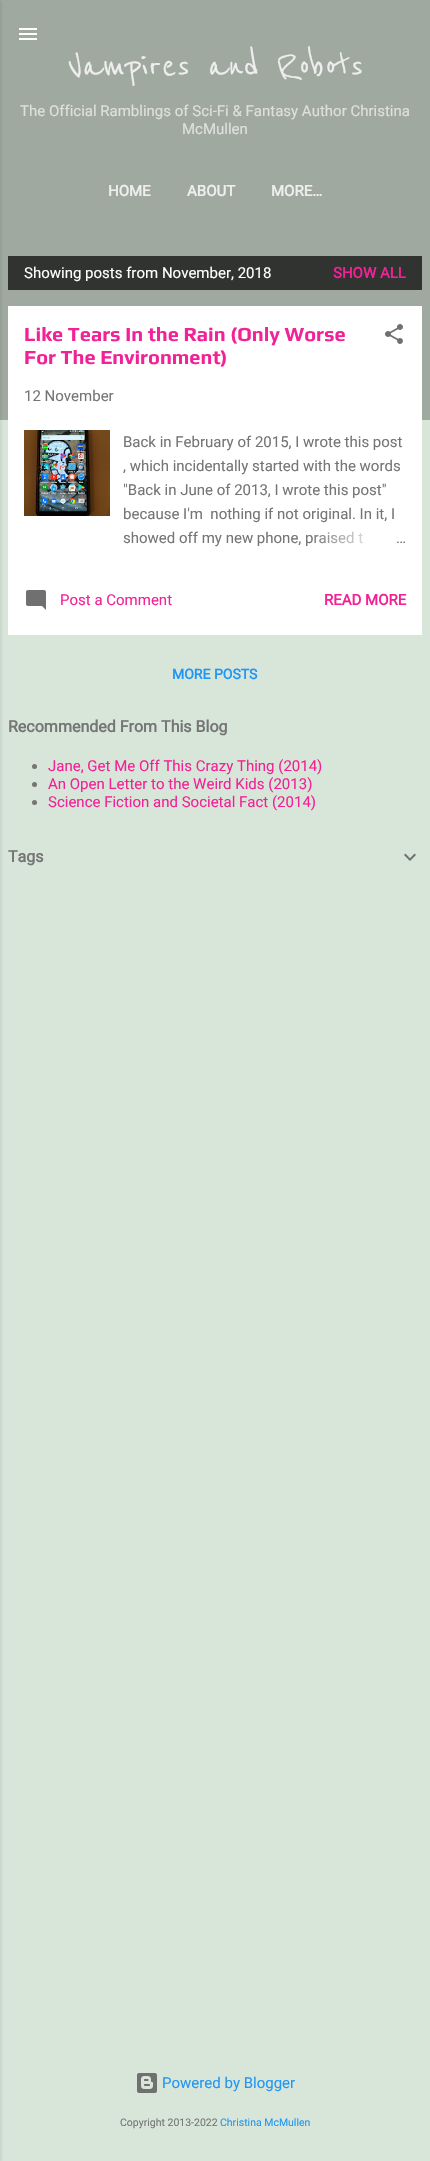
static SkFont makeFont(const char* family, int weight, float size, bool italic = false) {
  SkFontStyle style(weight, SkFontStyle::kNormal_Width,
    italic ? SkFontStyle::kItalic_Slant : SkFontStyle::kUpright_Slant);
  SkFont result(fontMgr->matchFamilyStyle(family, style), size);
  result.setSubpixel(true);
  return result;
}

static void text(SkCanvas* c, const char* s, float x, float y, const SkFont& font, SkColor color) {
  SkPaint ink(SkColor4f::FromColor(color));
  ink.setAntiAlias(true);
  c->drawString(s, x, y, font, ink);
}

static void box(SkCanvas* c, float l, float t, float r, float b, SkColor color) {
  SkPaint ink(SkColor4f::FromColor(color));
  ink.setAntiAlias(true);
  c->drawRect(SkRect::MakeLTRB(l, t, r, b), ink);
}

static void picture(SkCanvas* c, const char* path, float l, float t, float r, float b) {
  auto image = SkImages::DeferredFromEncodedData(SkData::MakeFromFileName(path));
  c->drawImageRect(image, SkRect::MakeLTRB(l, t, r, b), SkSamplingOptions());
}

void draw(SkCanvas* c) {
  SkPaint paint;
  paint.setAntiAlias(true);
  c->clear(0xffd8e5d9);
  box(c, 0, 0, 430, 420, 0xffa0a9a0);
  paint.setColor(0x1a000000);
  paint.setMaskFilter(SkMaskFilter::MakeBlur(kNormal_SkBlurStyle, 1.5f));
  c->drawRect(SkRect::MakeLTRB(-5, 1, 1, 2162), paint);
  paint.setMaskFilter(nullptr);
  picture(c, "img_01.png", 19, 28, 37, 40);
  SkFont face1 = makeFont("Reenie Beanie", 500, 42.75f);
  text(c, "Vampires and Robots", 68, 77, face1, 0xffeeeeee);
  SkFont face2 = makeFont("Roboto", 400, 15);
  text(c, "The Official Ramblings of Sci-Fi & Fantasy Author Christina", 20, 116, face2, 0xffdee0de);
  text(c, "McMullen", 182, 134, face2, 0xffdee0de);
  SkFont face3 = makeFont("Roboto", 700, 15);
  text(c, "HOME", 108, 196, face3, 0xffeeeeee);
  text(c, "ABOUT", 187, 196, face3, 0xffeeeeee);
  text(c, "MORE…", 271, 196, face3, 0xffeeeeee);
  box(c, 8, 256, 422, 290, 0xff303330);
  text(c, "Showing posts from November, 2018", 24, 278, face2, 0xffffffff);
  text(c, "SHOW ALL", 333, 278, face3, 0xfff32196);
  box(c, 8, 306, 422, 635, 0xffffffff);
  SkFont face4 = makeFont("Play", 700, 20);
  text(c, "Like Tears In the Rain (Only Worse", 24, 341, face4, 0xfff32196);
  text(c, "For The Environment)", 24, 364, face4, 0xfff32196);
  picture(c, "img_02.png", 385, 324, 403, 344);
  text(c, "12 November", 24, 401, face2, 0xff757575);
  picture(c, "img_03.png", 24, 430, 110, 516);
  text(c, "Back in February of 2015, I wrote this post", 123, 447, face2, 0xff757575);
  text(c, ", which incidentally started with the words", 123, 471, face2, 0xff757575);
  text(c, "\"Back in June of 2013, I wrote this post\"", 123, 495, face2, 0xff757575);
  text(c, "because I'm  nothing if not original. In it, I", 123, 519, face2, 0xff757575);
  text(c, "showed off my new phone, praised t", 123, 543, face2, 0xff757575);
  {
    const SkColor colors[] = {0xffffffff, 0xffffffff, 0x00ffffff};
    const float stops[] = {0, 0.2f, 1};
    const SkPoint ends[] = {{406, 538}, {310, 538}};
    paint.setShader(SkGradientShader::MakeLinear(ends, colors, stops, 3, SkTileMode::kClamp));
    paint.setAlpha(255);
  }
  c->drawRect(SkRect::MakeLTRB(314, 531, 363, 544), paint);
  text(c, "…", 396, 543, face2, 0xff757575);
  picture(c, "img_04.png", 26, 590, 46, 610);
  text(c, "Post a Comment", 60, 605, face2, 0xfff32196);
  text(c, "READ MORE", 324, 605, face3, 0xfff32196);
  SkFont face5 = makeFont("Roboto", 700, 14);
  text(c, "MORE POSTS", 172, 679, face5, 0xff2196f3);
  SkFont face6 = makeFont("Roboto", 700, 16);
  text(c, "Recommended From This Blog", 8, 732, face6, 0xff757575);
  paint.setShader(nullptr);
  paint.setColor(0xff757575);
  c->drawCircle(34.5f, 766.5f, 2.5f, paint);
  text(c, "Jane, Get Me Off This Crazy Thing (2014)", 48, 771, face2, 0xfff32196);
  c->drawCircle(34.5f, 784.5f, 2.5f, paint);
  text(c, "An Open Letter to the Weird Kids (2013)", 48, 789, face2, 0xfff32196);
  c->drawCircle(34.5f, 802.5f, 2.5f, paint);
  text(c, "Science Fiction and Societal Fact (2014)", 48, 807, face2, 0xfff32196);
  text(c, "Tags", 8, 862, face6, 0xff757575);
  picture(c, "img_05.png", 404, 853, 416, 861);
  picture(c, "img_06.png", 137, 2073, 157, 2093);
  text(c, "Powered by Blogger", 162, 2088, face2, 0xff2196f3);
  SkFont face7 = makeFont("Roboto", 400, 10.5f);
  text(c, "Copyright 2013-2022", 120, 2126, face7, 0xff757575);
  text(c, "Christina McMullen", 220, 2126, face7, 0xff2196f3);
}
